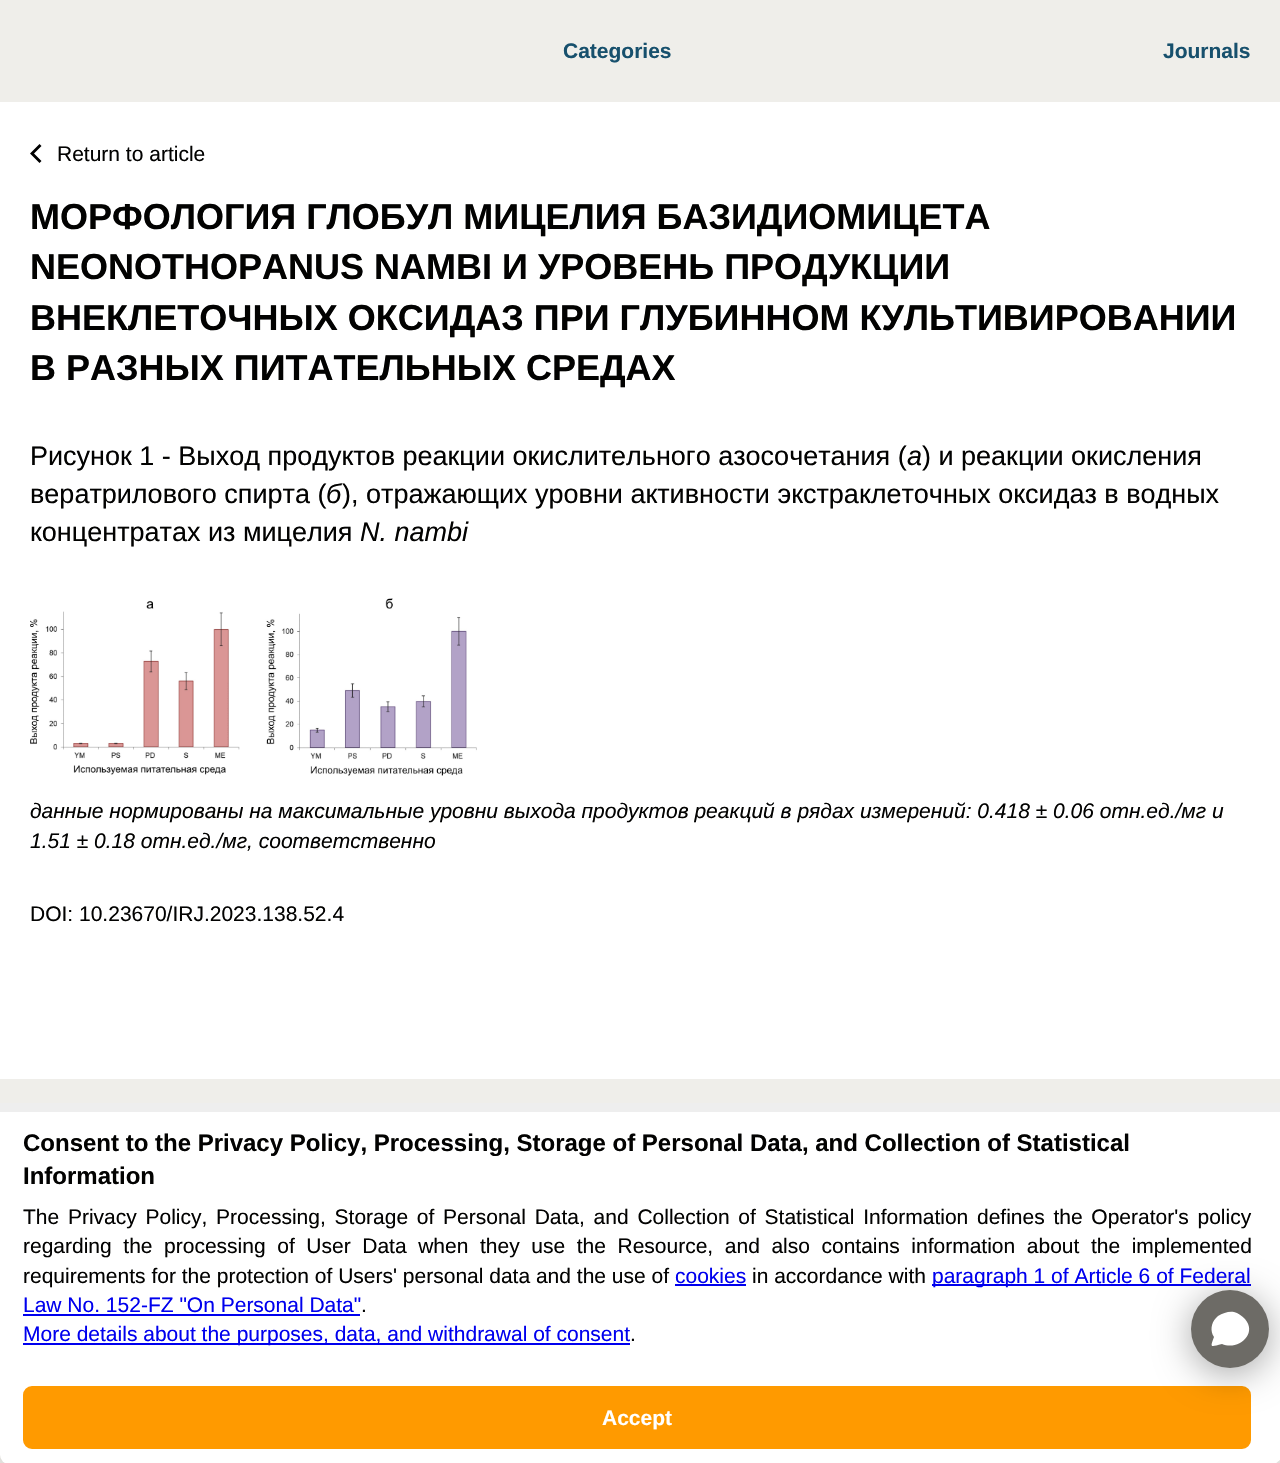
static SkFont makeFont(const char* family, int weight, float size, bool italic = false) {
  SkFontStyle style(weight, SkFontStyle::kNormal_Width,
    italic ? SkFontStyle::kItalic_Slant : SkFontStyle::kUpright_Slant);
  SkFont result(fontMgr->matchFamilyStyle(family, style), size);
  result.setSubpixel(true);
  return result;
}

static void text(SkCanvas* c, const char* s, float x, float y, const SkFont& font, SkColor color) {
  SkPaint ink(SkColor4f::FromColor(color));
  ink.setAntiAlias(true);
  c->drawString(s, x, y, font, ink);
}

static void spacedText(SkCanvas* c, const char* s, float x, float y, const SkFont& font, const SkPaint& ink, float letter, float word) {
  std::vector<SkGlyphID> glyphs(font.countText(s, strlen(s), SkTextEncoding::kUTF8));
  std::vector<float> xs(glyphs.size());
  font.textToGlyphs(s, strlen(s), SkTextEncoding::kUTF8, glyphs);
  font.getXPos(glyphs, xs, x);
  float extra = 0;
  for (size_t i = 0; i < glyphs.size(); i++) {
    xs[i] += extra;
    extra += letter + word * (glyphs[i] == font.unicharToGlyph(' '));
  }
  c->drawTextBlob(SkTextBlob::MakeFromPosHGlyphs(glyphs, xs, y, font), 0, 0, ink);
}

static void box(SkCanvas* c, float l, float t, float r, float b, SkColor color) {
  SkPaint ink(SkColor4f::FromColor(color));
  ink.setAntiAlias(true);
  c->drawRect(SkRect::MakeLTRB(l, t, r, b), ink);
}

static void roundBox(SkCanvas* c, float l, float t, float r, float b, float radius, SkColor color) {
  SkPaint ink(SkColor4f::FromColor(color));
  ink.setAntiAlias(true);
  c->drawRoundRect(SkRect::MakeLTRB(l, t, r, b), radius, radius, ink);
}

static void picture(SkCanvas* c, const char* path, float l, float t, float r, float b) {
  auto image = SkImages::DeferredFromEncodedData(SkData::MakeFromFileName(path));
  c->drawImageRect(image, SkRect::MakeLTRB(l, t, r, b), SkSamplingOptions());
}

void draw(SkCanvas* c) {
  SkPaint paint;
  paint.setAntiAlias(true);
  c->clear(0xffffffff);
  box(c, 0, 0, 1280, 102, 0xffefeeea);
  SkFont face1 = makeFont("Liberation Sans", 700, 21);
  text(c, "Categories", 563, 58, face1, 0xff17506d);
  text(c, "Journals", 1163, 58, face1, 0xff17506d);
  paint.setColor(0xff000000);
  c->drawPath(SkPathBuilder().moveTo(39.5f, 163).lineTo(41.5f, 161).lineTo(34, 153.5f).lineTo(41.5f, 146).lineTo(39.5f, 144).lineTo(30, 153.5f).close().detach(), paint);
  SkFont face2 = makeFont("Liberation Sans", 400, 21);
  text(c, "Return to article", 57, 161, face2, 0xff020201);
  SkFont face3 = makeFont("Liberation Sans", 700, 36);
  text(c, "МОРФОЛОГИЯ ГЛОБУЛ МИЦЕЛИЯ БАЗИДИОМИЦЕТА", 30, 229, face3, 0xff020201);
  text(c, "NEONOTHOPANUS NAMBI И УРОВЕНЬ ПРОДУКЦИИ", 30, 279, face3, 0xff020201);
  text(c, "ВНЕКЛЕТОЧНЫХ ОКСИДАЗ ПРИ ГЛУБИННОМ КУЛЬТИВИРОВАНИИ", 30, 330, face3, 0xff020201);
  text(c, "В РАЗНЫХ ПИТАТЕЛЬНЫХ СРЕДАХ", 30, 380, face3, 0xff020201);
  SkFont face4 = makeFont("Liberation Sans", 400, 27);
  text(c, "Рисунок 1 - Выход продуктов реакции окислительного азосочетания (", 30, 465, face4, 0xff020201);
  SkFont face5 = makeFont("Liberation Sans", 400, 27, true);
  text(c, "а", 907, 465, face5, 0xff020201);
  text(c, ") и реакции окисления", 922, 465, face4, 0xff020201);
  text(c, "вератрилового спирта (", 30, 503, face4, 0xff020201);
  text(c, "б", 326, 503, face5, 0xff020201);
  text(c, "), отражающих уровни активности экстраклеточных оксидаз в водных", 342, 503, face4, 0xff020201);
  text(c, "концентратах из мицелия", 30, 541, face4, 0xff020201);
  text(c, "N. nambi", 360, 541, face5, 0xff020201);
  picture(c, "img_01.png", 30, 598, 477, 776);
  SkFont face6 = makeFont("Liberation Sans", 400, 21, true);
  text(c, "данные нормированы на максимальные уровни выхода продуктов реакций в рядах измерений: 0.418 ± 0.06 отн.ед./мг и", 30, 818, face6, 0xff020201);
  text(c, "1.51 ± 0.18 отн.ед./мг, соответственно", 30, 848, face6, 0xff020201);
  text(c, "DOI: 10.23670/IRJ.2023.138.52.4", 30, 921, face2, 0xff020201);
  box(c, 0, 1079, 1280, 1103, 0xffefeeea);
  box(c, 0, 1455, 1280, 1463, 0xffefeeea);
  c->save();
  c->clipRect(SkRect::MakeLTRB(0, 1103, 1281, 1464));
  paint.setColor(0x33000000);
  paint.setMaskFilter(SkMaskFilter::MakeBlur(kNormal_SkBlurStyle, 15));
  c->drawRoundRect(SkRect::MakeLTRB(0, 1103, 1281, 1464), 9, 9, paint);
  paint.setMaskFilter(nullptr);
  c->restore();
  roundBox(c, 0, 1103, 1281, 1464, 9, 0xffffffff);
  box(c, 932, 1284, 1251, 1286, 0xff0000ee);
  paint.setColor(0xffff9a00);
  c->drawRoundRect(SkRect::MakeLTRB(24, 1387, 1250, 1448), 8, 8, paint);
  paint.setStyle(SkPaint::kStroke_Style);
  paint.setStrokeWidth(2);
  c->drawRoundRect(SkRect::MakeLTRB(24, 1387, 1250, 1448), 8, 8, paint);
  paint.setStyle(SkPaint::kFill_Style);
  paint.setColor(0x59000000);
  paint.setMaskFilter(SkMaskFilter::MakeBlur(kNormal_SkBlurStyle, 18));
  c->drawRoundRect(SkRect::MakeLTRB(1191, 1296, 1269, 1374), 39, 39, paint);
  paint.setMaskFilter(nullptr);
  paint.setColor(0xff6d6b66);
  c->drawCircle(1230, 1329, 39, paint);
  paint.setColor(0xffffffff);
  c->drawPath(SkPathBuilder().moveTo(1218, 1316).cubicTo(1223, 1313, 1229, 1311, 1234, 1312).cubicTo(1238, 1313, 1242, 1316, 1245, 1319).cubicTo(1258, 1334, 1238, 1351, 1222, 1344).cubicTo(1210, 1347, 1210, 1348, 1214, 1337).cubicTo(1210, 1331, 1211, 1323, 1216, 1318).close().detach(), paint);
  box(c, 0, 1103, 1280, 1112, 0xffeeeeee);
  SkFont face7 = makeFont("Liberation Sans", 700, 24);
  text(c, "Consent to the Privacy Policy, Processing, Storage of Personal Data, and Collection of Statistical", 23, 1151, face7, 0xff020201);
  text(c, "Information", 23, 1184, face7, 0xff020201);
  paint.setColor(0xff020201);
  spacedText(c, "The Privacy Policy, Processing, Storage of Personal Data, and Collection of Statistical Information defines the Operator's policy", 23, 1224, face2, paint, 0, 2.9f);
  spacedText(c, "regarding the processing of User Data when they use the Resource, and also contains information about the implemented", 23, 1253, face2, paint, 0, 5.75f);
  text(c, "requirements for the protection of Users' personal data and the use of", 23, 1283, face2, 0xff020201);
  text(c, "cookies", 675, 1283, face2, 0xff0000ee);
  box(c, 675, 1284, 746, 1286, 0xff0000ee);
  text(c, "in accordance with", 752, 1283, face2, 0xff020201);
  text(c, "paragraph 1 of Article 6 of Federal", 932, 1283, face2, 0xff0000ee);
  text(c, "Law No. 152-FZ \"On Personal Data\"", 23, 1312, face2, 0xff0000ee);
  box(c, 23, 1314, 360, 1316, 0xff0000ee);
  text(c, ".", 361, 1312, face2, 0xff020201);
  box(c, 23, 1343, 630, 1345, 0xff0000ee);
  text(c, "More details about the purposes, data, and withdrawal of consent", 23, 1341, face2, 0xff0000ee);
  text(c, ".", 630, 1341, face2, 0xff020201);
  text(c, "Accept", 602, 1425, face1, 0xffffffff);
}
